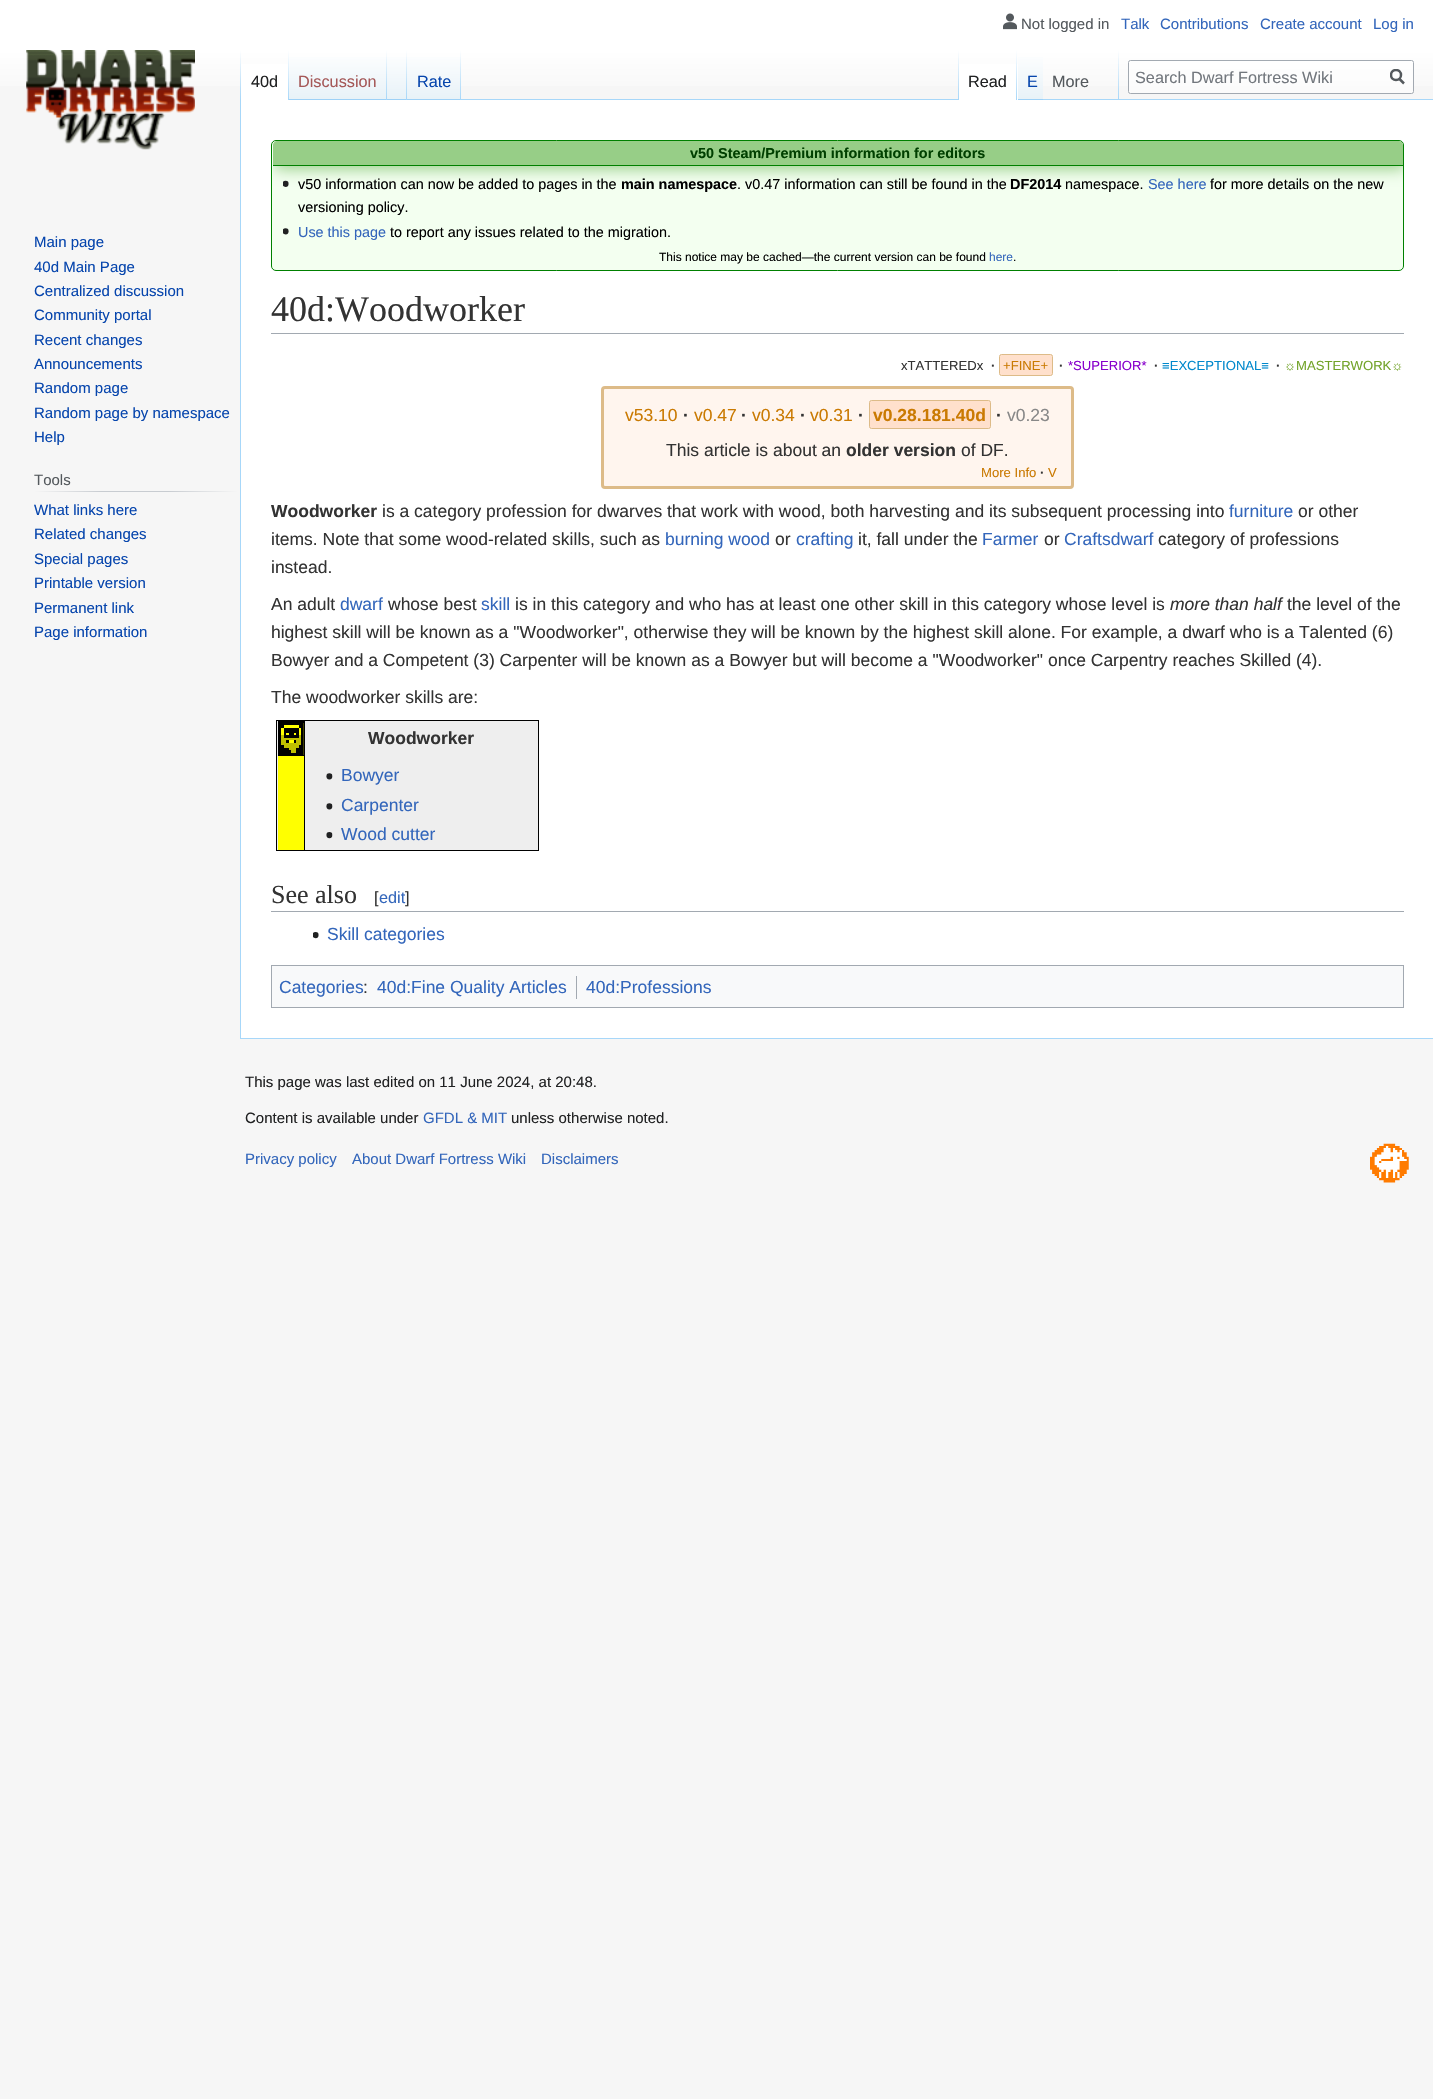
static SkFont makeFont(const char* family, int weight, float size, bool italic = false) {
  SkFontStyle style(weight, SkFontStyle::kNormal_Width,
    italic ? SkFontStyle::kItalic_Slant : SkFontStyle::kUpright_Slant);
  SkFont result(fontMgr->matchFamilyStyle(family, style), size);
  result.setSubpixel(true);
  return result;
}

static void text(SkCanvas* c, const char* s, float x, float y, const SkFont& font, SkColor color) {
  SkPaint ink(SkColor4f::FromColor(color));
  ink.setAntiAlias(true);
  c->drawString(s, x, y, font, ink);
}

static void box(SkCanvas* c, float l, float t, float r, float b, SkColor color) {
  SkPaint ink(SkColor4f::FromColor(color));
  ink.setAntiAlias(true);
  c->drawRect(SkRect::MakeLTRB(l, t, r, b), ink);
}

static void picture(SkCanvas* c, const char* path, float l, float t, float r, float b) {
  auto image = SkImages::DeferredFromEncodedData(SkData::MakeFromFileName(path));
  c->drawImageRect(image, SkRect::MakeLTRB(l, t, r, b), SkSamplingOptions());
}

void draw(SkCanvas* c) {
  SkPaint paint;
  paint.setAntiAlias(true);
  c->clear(0xfff6f6f6);
  {
    const SkColor colors[] = {0xffffffff, 0xfff6f6f6};
    const float stops[] = {0.5f, 1};
    const SkPoint ends[] = {{717, 0}, {717, 100}};
    paint.setShader(SkGradientShader::MakeLinear(ends, colors, stops, 2, SkTileMode::kClamp));
    paint.setAlpha(255);
  }
  c->drawRect(SkRect::MakeLTRB(0, 0, 1433, 86), paint);
  picture(c, "img_01.png", 1003, 13, 1017, 30);
  SkFont face1 = makeFont("Liberation Sans", 400, 15);
  text(c, "Not logged in", 1021, 29, face1, 0xff54595d);
  text(c, "Talk", 1121, 29, face1, 0xff3366bb);
  text(c, "Contributions", 1160, 29, face1, 0xff3366bb);
  text(c, "Create account", 1260, 29, face1, 0xff3366bb);
  text(c, "Log in", 1373, 29, face1, 0xff3366bb);
  box(c, 240, 1038, 1433, 1039, 0xffa7d7f9);
  box(c, 240, 99, 241, 1039, 0xffa7d7f9);
  {
    const SkColor colors[] = {0x00a7d7f9, 0xffa7d7f9};
    const float stops[] = {0, 1};
    const SkPoint ends[] = {{241, 50}, {241, 100}};
    paint.setShader(SkGradientShader::MakeLinear(ends, colors, stops, 2, SkTileMode::kClamp));
    paint.setAlpha(255);
  }
  c->drawRect(SkRect::MakeLTRB(240, 50, 241, 100), paint);
  box(c, 241, 64, 288, 100, 0xffffffff);
  {
    const SkColor colors[] = {0xffffffff, 0xffa7d7f9};
    const float stops[] = {0, 1};
    const SkPoint ends[] = {{288, 50}, {288, 100}};
    paint.setShader(SkGradientShader::MakeLinear(ends, colors, stops, 2, SkTileMode::kClamp));
    paint.setAlpha(255);
  }
  c->drawRect(SkRect::MakeLTRB(288, 50, 289, 100), paint);
  SkFont face2 = makeFont("Liberation Sans", 400, 16.25f);
  text(c, "40d", 251, 87, face2, 0xff202122);
  {
    const SkColor colors[] = {0xff77c1f6, 0xffe8f2f8, 0xffffffff};
    const float stops[] = {0, 0.03f, 1};
    const SkPoint ends[] = {{338, 100}, {338, 50}};
    paint.setShader(SkGradientShader::MakeLinear(ends, colors, stops, 3, SkTileMode::kClamp));
    paint.setAlpha(255);
  }
  c->drawRect(SkRect::MakeLTRB(289, 57, 388, 100), paint);
  {
    const SkColor colors[] = {0x00a7d7f9, 0xffa7d7f9};
    const float stops[] = {0, 1};
    const SkPoint ends[] = {{387, 50}, {387, 100}};
    paint.setShader(SkGradientShader::MakeLinear(ends, colors, stops, 2, SkTileMode::kClamp));
    paint.setAlpha(255);
  }
  c->drawRect(SkRect::MakeLTRB(386, 50, 387, 100), paint);
  text(c, "Discussion", 298, 87, face2, 0xffa55858);
  {
    const SkColor colors[] = {0xff77c1f6, 0xffe8f2f8, 0xffffffff};
    const float stops[] = {0, 0.03f, 1};
    const SkPoint ends[] = {{398, 100}, {398, 50}};
    paint.setShader(SkGradientShader::MakeLinear(ends, colors, stops, 3, SkTileMode::kClamp));
    paint.setAlpha(255);
  }
  c->drawRect(SkRect::MakeLTRB(388, 57, 408, 100), paint);
  {
    const SkColor colors[] = {0x00a7d7f9, 0xffa7d7f9};
    const float stops[] = {0, 1};
    const SkPoint ends[] = {{407, 50}, {407, 100}};
    paint.setShader(SkGradientShader::MakeLinear(ends, colors, stops, 2, SkTileMode::kClamp));
    paint.setAlpha(255);
  }
  c->drawRect(SkRect::MakeLTRB(406, 50, 407, 100), paint);
  {
    const SkColor colors[] = {0xff77c1f6, 0xffe8f2f8, 0xffffffff};
    const float stops[] = {0, 0.03f, 1};
    const SkPoint ends[] = {{434, 100}, {434, 50}};
    paint.setShader(SkGradientShader::MakeLinear(ends, colors, stops, 3, SkTileMode::kClamp));
    paint.setAlpha(255);
  }
  c->drawRect(SkRect::MakeLTRB(408, 57, 461, 100), paint);
  {
    const SkColor colors[] = {0x00a7d7f9, 0xffa7d7f9};
    const float stops[] = {0, 1};
    const SkPoint ends[] = {{461, 50}, {461, 100}};
    paint.setShader(SkGradientShader::MakeLinear(ends, colors, stops, 2, SkTileMode::kClamp));
    paint.setAlpha(255);
  }
  c->drawRect(SkRect::MakeLTRB(460, 50, 461, 100), paint);
  text(c, "Rate", 417, 87, face2, 0xff0645ad);
  box(c, 461, 99, 1433, 100, 0xffa7d7f9);
  {
    const SkColor colors[] = {0x00a7d7f9, 0xffa7d7f9};
    const float stops[] = {0, 1};
    const SkPoint ends[] = {{958, 50}, {958, 100}};
    paint.setShader(SkGradientShader::MakeLinear(ends, colors, stops, 2, SkTileMode::kClamp));
    paint.setAlpha(255);
  }
  c->drawRect(SkRect::MakeLTRB(958, 50, 959, 100), paint);
  box(c, 959, 64, 1018, 100, 0xffffffff);
  {
    const SkColor colors[] = {0xffffffff, 0xffa7d7f9};
    const float stops[] = {0, 1};
    const SkPoint ends[] = {{1017, 50}, {1017, 100}};
    paint.setShader(SkGradientShader::MakeLinear(ends, colors, stops, 2, SkTileMode::kClamp));
    paint.setAlpha(255);
  }
  c->drawRect(SkRect::MakeLTRB(1016, 50, 1017, 100), paint);
  text(c, "Read", 968, 87, face2, 0xff202122);
  {
    const SkColor colors[] = {0xff77c1f6, 0xffe8f2f8, 0xffffffff};
    const float stops[] = {0, 0.03f, 1};
    const SkPoint ends[] = {{1030, 100}, {1030, 50}};
    paint.setShader(SkGradientShader::MakeLinear(ends, colors, stops, 3, SkTileMode::kClamp));
    paint.setAlpha(255);
  }
  c->drawRect(SkRect::MakeLTRB(1018, 57, 1043, 100), paint);
  text(c, "E", 1027, 87, face2, 0xff0645ad);
  {
    const SkColor colors[] = {0x00a7d7f9, 0xffa7d7f9};
    const float stops[] = {0, 1};
    const SkPoint ends[] = {{1118, 50}, {1118, 100}};
    paint.setShader(SkGradientShader::MakeLinear(ends, colors, stops, 2, SkTileMode::kClamp));
    paint.setAlpha(255);
  }
  c->drawRect(SkRect::MakeLTRB(1118, 50, 1119, 100), paint);
  text(c, "More", 1052, 87, face2, 0xff54595d);
  paint.setShader(nullptr);
  paint.setColor(0x80ffffff);
  c->drawRoundRect(SkRect::MakeLTRB(1128.5f, 60.5f, 1413.5f, 93.5f), 2, 2, paint);
  paint.setStyle(SkPaint::kStroke_Style);
  paint.setStrokeWidth(1);
  paint.setColor(0xffa2a9b1);
  c->drawRoundRect(SkRect::MakeLTRB(1128.5f, 60.5f, 1413.5f, 93.5f), 2, 2, paint);
  text(c, "Search Dwarf Fortress Wiki", 1135, 83, face2, 0xff72777d);
  paint.setStrokeWidth(2.5f);
  paint.setColor(0xff54595d);
  c->drawPath(SkPathBuilder().moveTo(1404, 83.5f).lineTo(1399, 78.5f).detach(), paint);
  c->save();
  c->clipRect(SkRect::MakeLTRB(1390, 69, 1405, 85));
  c->drawCircle(1396, 75, 5, paint);
  c->restore();
  picture(c, "img_02.png", 26, 50, 195, 150);
  text(c, "Main page", 34, 247, face1, 0xff0645ad);
  text(c, "40d Main Page", 34, 272, face1, 0xff0645ad);
  text(c, "Centralized discussion", 34, 296, face1, 0xff0645ad);
  text(c, "Community portal", 34, 320, face1, 0xff0645ad);
  text(c, "Recent changes", 34, 345, face1, 0xff0645ad);
  text(c, "Announcements", 34, 369, face1, 0xff0645ad);
  text(c, "Random page", 34, 393, face1, 0xff0645ad);
  text(c, "Random page by namespace", 34, 418, face1, 0xff0645ad);
  text(c, "Help", 34, 442, face1, 0xff0645ad);
  paint.setStyle(SkPaint::kFill_Style);
  {
    const SkColor colors[] = {0xfff6f6f6, 0xffc8ccd1, 0xffc8ccd1, 0xfff6f6f6};
    const float stops[] = {0, 0.33f, 0.66f, 1};
    const SkPoint ends[] = {{34, 492}, {238, 492}};
    paint.setShader(SkGradientShader::MakeLinear(ends, colors, stops, 4, SkTileMode::kClamp));
    paint.setAlpha(255);
  }
  c->drawRect(SkRect::MakeLTRB(34, 491, 238, 492), paint);
  text(c, "Tools", 34, 485, face1, 0xff54595d);
  text(c, "What links here", 34, 515, face1, 0xff0645ad);
  text(c, "Related changes", 34, 539, face1, 0xff0645ad);
  text(c, "Special pages", 34, 564, face1, 0xff0645ad);
  text(c, "Printable version", 34, 588, face1, 0xff0645ad);
  text(c, "Permanent link", 34, 613, face1, 0xff0645ad);
  text(c, "Page information", 34, 637, face1, 0xff0645ad);
  box(c, 241, 100, 1433, 1038, 0xffffffff);
  paint.setShader(nullptr);
  paint.setColor(0xfff3fff0);
  c->drawRoundRect(SkRect::MakeLTRB(271.5f, 140.5f, 1403.5f, 270.5f), 4.5f, 4.5f, paint);
  paint.setStyle(SkPaint::kStroke_Style);
  paint.setStrokeWidth(1);
  paint.setColor(0xff008000);
  c->drawRoundRect(SkRect::MakeLTRB(271.5f, 140.5f, 1403.5f, 270.5f), 4.5f, 4.5f, paint);
  c->save();
  c->clipPath(SkPathBuilder().moveTo(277, 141).lineTo(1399, 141).cubicTo(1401, 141, 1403, 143, 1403, 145).lineTo(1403, 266).cubicTo(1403, 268, 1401, 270, 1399, 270).lineTo(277, 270).cubicTo(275, 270, 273, 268, 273, 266).lineTo(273, 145).cubicTo(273, 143, 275, 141, 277, 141).close().detach(), true);
  paint.setStyle(SkPaint::kFill_Style);
  paint.setColor(0xff97ce87);
  paint.setMaskFilter(SkMaskFilter::MakeBlur(kNormal_SkBlurStyle, 7.5f));
  c->drawRect(SkRect::MakeLTRB(275, 144, 1405, 169), paint);
  paint.setMaskFilter(nullptr);
  c->restore();
  c->drawPath(SkPathBuilder().moveTo(277, 141).lineTo(1399, 141).cubicTo(1401, 141, 1403, 143, 1403, 145).lineTo(1403, 166).lineTo(273, 166).lineTo(273, 145).cubicTo(273, 143, 275, 141, 277, 141).close().detach(), paint);
  box(c, 273, 165, 1403, 166, 0xff008000);
  SkFont face3 = makeFont("Liberation Sans", 700, 14.4f);
  text(c, "v50 Steam/Premium information for editors", 690, 158, face3, 0xff004000);
  picture(c, "img_03.png", 283, 180, 289, 187);
  SkFont face4 = makeFont("Liberation Sans", 400, 14.4f);
  text(c, "v50 information can now be added to pages in the", 298, 189, face4, 0xff000000);
  text(c, "main namespace", 621, 189, face3, 0xff000000);
  text(c, ". v0.47 information can still be found in the", 737, 189, face4, 0xff000000);
  text(c, "DF2014", 1010, 189, face3, 0xff000000);
  text(c, "namespace.", 1065, 189, face4, 0xff000000);
  text(c, "See here", 1148, 189, face4, 0xff3366bb);
  text(c, "for more details on the new", 1210, 189, face4, 0xff000000);
  text(c, "versioning policy.", 298, 212, face4, 0xff000000);
  picture(c, "img_04.png", 283, 228, 289, 235);
  text(c, "Use this page", 298, 237, face4, 0xff3366bb);
  text(c, "to report any issues related to the migration.", 390, 237, face4, 0xff000000);
  SkFont face5 = makeFont("Liberation Sans", 400, 12);
  text(c, "This notice may be cached—the current version can be found", 659, 261, face5, 0xff000000);
  text(c, "here", 989, 261, face5, 0xff3366bb);
  text(c, ".", 1013, 261, face5, 0xff000000);
  box(c, 271, 333, 1404, 334, 0xffa2a9b1);
  SkFont face6 = makeFont("Liberation Serif", 400, 36);
  text(c, "40d:Woodworker", 271, 321, face6, 0xff333333);
  SkFont face7 = makeFont("Liberation Sans", 400, 13.1f);
  text(c, "xTATTEREDx", 901, 370, face7, 0xff333333);
  SkFont face8 = makeFont("Liberation Sans", 700, 13.1f);
  text(c, "·", 991, 370, face8, 0xff333333);
  paint.setColor(0xffffe0cc);
  c->drawRoundRect(SkRect::MakeLTRB(999.5f, 354.5f, 1052.5f, 375.5f), 2, 2, paint);
  paint.setStyle(SkPaint::kStroke_Style);
  paint.setColor(0xffddbb88);
  c->drawRoundRect(SkRect::MakeLTRB(999.5f, 354.5f, 1052.5f, 375.5f), 2, 2, paint);
  text(c, "+FINE+", 1003, 370, face7, 0xffca7a02);
  text(c, "·", 1059, 370, face8, 0xff333333);
  text(c, "*SUPERIOR*", 1068, 370, face7, 0xff8800cc);
  text(c, "·", 1154, 370, face8, 0xff333333);
  text(c, "≡EXCEPTIONAL≡", 1162, 370, face7, 0xff0088cc);
  text(c, "·", 1276, 370, face8, 0xff333333);
  text(c, "☼MASTERWORK☼", 1284, 370, face7, 0xff72a329);
  paint.setStyle(SkPaint::kFill_Style);
  paint.setColor(0xfffff5ee);
  c->drawRoundRect(SkRect::MakeLTRB(602.5f, 387.5f, 1072.5f, 487.5f), 2.5f, 2.5f, paint);
  paint.setStyle(SkPaint::kStroke_Style);
  paint.setStrokeWidth(3);
  paint.setColor(0xffddbb88);
  c->drawRoundRect(SkRect::MakeLTRB(602.5f, 387.5f, 1072.5f, 487.5f), 2.5f, 2.5f, paint);
  SkFont face9 = makeFont("Liberation Sans", 400, 17.5f);
  text(c, "v53.10", 625, 421, face9, 0xffca7a02);
  SkFont face10 = makeFont("Liberation Sans", 700, 17.5f);
  text(c, "·", 683, 421, face10, 0xff333333);
  text(c, "v0.47", 694, 421, face9, 0xffca7a02);
  text(c, "·", 741, 421, face10, 0xff333333);
  text(c, "v0.34", 752, 421, face9, 0xffca7a02);
  text(c, "·", 800, 421, face10, 0xff333333);
  text(c, "v0.31", 810, 421, face9, 0xffca7a02);
  text(c, "·", 858, 421, face10, 0xff333333);
  paint.setStyle(SkPaint::kFill_Style);
  paint.setColor(0xffffe0cc);
  c->drawRoundRect(SkRect::MakeLTRB(869.5f, 400.5f, 990.5f, 428.5f), 2, 2, paint);
  paint.setStyle(SkPaint::kStroke_Style);
  paint.setStrokeWidth(1);
  paint.setColor(0xffddbb88);
  c->drawRoundRect(SkRect::MakeLTRB(869.5f, 400.5f, 990.5f, 428.5f), 2, 2, paint);
  text(c, "v0.28.181.40d", 873, 421, face10, 0xffca7a02);
  text(c, "·", 996, 421, face10, 0xff333333);
  text(c, "v0.23", 1007, 421, face9, 0xff888888);
  text(c, "This article is about an", 666, 456, face9, 0xff333333);
  text(c, "older version", 846, 456, face10, 0xff333333);
  text(c, "of DF.", 961, 456, face9, 0xff333333);
  text(c, "More Info", 981, 477, face7, 0xffca7a02);
  text(c, "·", 1040, 477, face8, 0xff333333);
  text(c, "V", 1048, 477, face7, 0xffca7a02);
  text(c, "Woodworker", 271, 517, face10, 0xff333333);
  text(c, "is a category profession for dwarves that work with wood, both harvesting and its subsequent processing into", 382, 517, face9, 0xff333333);
  text(c, "furniture", 1229, 517, face9, 0xff3366bb);
  text(c, "or other", 1298, 517, face9, 0xff333333);
  text(c, "items. Note that some wood-related skills, such as", 271, 545, face9, 0xff333333);
  text(c, "burning wood", 665, 545, face9, 0xff3366bb);
  text(c, "or", 775, 545, face9, 0xff333333);
  text(c, "crafting", 796, 545, face9, 0xff3366bb);
  text(c, "it, fall under the", 858, 545, face9, 0xff333333);
  text(c, "Farmer", 982, 545, face9, 0xff3366bb);
  text(c, "or", 1044, 545, face9, 0xff333333);
  text(c, "Craftsdwarf", 1064, 545, face9, 0xff3366bb);
  text(c, "category of professions", 1158, 545, face9, 0xff333333);
  text(c, "instead.", 271, 573, face9, 0xff333333);
  text(c, "An adult", 271, 610, face9, 0xff333333);
  text(c, "dwarf", 340, 610, face9, 0xff3366bb);
  text(c, "whose best", 388, 610, face9, 0xff333333);
  text(c, "skill", 481, 610, face9, 0xff3366bb);
  text(c, "is in this category and who has at least one other skill in this category whose level is", 515, 610, face9, 0xff333333);
  SkFont face11 = makeFont("Liberation Sans", 400, 17.5f, true);
  text(c, "more than half", 1170, 610, face11, 0xff333333);
  text(c, "the level of the", 1287, 610, face9, 0xff333333);
  text(c, "highest skill will be known as a \"Woodworker\", otherwise they will be known by the highest skill alone. For example, a dwarf who is a Talented (6)", 271, 638, face9, 0xff333333);
  text(c, "Bowyer and a Competent (3) Carpenter will be known as a Bowyer but will become a \"Woodworker\" once Carpentry reaches Skilled (4).", 271, 666, face9, 0xff333333);
  text(c, "The woodworker skills are:", 271, 703, face9, 0xff333333);
  paint.setStyle(SkPaint::kFill_Style);
  paint.setColor(0xffeeeeee);
  c->drawRect(SkRect::MakeLTRB(276.5f, 720.5f, 538.5f, 850.5f), paint);
  paint.setStyle(SkPaint::kStroke_Style);
  paint.setColor(0xff000000);
  c->drawRect(SkRect::MakeLTRB(276.5f, 720.5f, 538.5f, 850.5f), paint);
  box(c, 278, 721, 305, 756, 0xff000000);
  box(c, 281, 723, 304, 755, 0xffffff00);
  picture(c, "img_05.png", 279, 723, 304, 755);
  text(c, "Woodworker", 368, 744, face10, 0xff333333);
  box(c, 278, 756, 304, 850, 0xffffff00);
  box(c, 304, 756, 305, 850, 0xff000000);
  picture(c, "img_06.png", 326, 773, 333, 780);
  text(c, "Bowyer", 341, 781, face9, 0xff3366bb);
  picture(c, "img_06.png", 326, 803, 333, 810);
  text(c, "Carpenter", 341, 811, face9, 0xff3366bb);
  picture(c, "img_07.png", 326, 832, 333, 839);
  text(c, "Wood cutter", 341, 840, face9, 0xff3366bb);
  box(c, 271, 911, 1404, 912, 0xffa2a9b1);
  SkFont face12 = makeFont("Liberation Serif", 400, 26);
  text(c, "See also", 271, 903, face12, 0xff333333);
  text(c, "[", 374, 903, face2, 0xff333333);
  text(c, "edit", 379, 903, face2, 0xff3366bb);
  text(c, "]", 405, 903, face2, 0xff333333);
  picture(c, "img_08.png", 313, 932, 319, 939);
  text(c, "Skill categories", 327, 940, face9, 0xff3366bb);
  paint.setStyle(SkPaint::kFill_Style);
  paint.setColor(0xfff8f9fa);
  c->drawRect(SkRect::MakeLTRB(271.5f, 965.5f, 1403.5f, 1007.5f), paint);
  paint.setStyle(SkPaint::kStroke_Style);
  paint.setColor(0xffa2a9b1);
  c->drawRect(SkRect::MakeLTRB(271.5f, 965.5f, 1403.5f, 1007.5f), paint);
  text(c, "Categories", 279, 993, face9, 0xff3366bb);
  text(c, ":", 363, 993, face9, 0xff333333);
  text(c, "40d:Fine Quality Articles", 377, 993, face9, 0xff3366bb);
  box(c, 576, 976, 577, 999, 0xffa2a9b1);
  text(c, "40d:Professions", 586, 993, face9, 0xff3366bb);
  text(c, "This page was last edited on 11 June 2024, at 20:48.", 245, 1087, face1, 0xff202122);
  text(c, "Content is available under", 245, 1123, face1, 0xff202122);
  text(c, "GFDL & MIT", 423, 1123, face1, 0xff3366bb);
  text(c, "unless otherwise noted.", 511, 1123, face1, 0xff202122);
  text(c, "Privacy policy", 245, 1164, face1, 0xff3366bb);
  text(c, "About Dwarf Fortress Wiki", 352, 1164, face1, 0xff3366bb);
  text(c, "Disclaimers", 541, 1164, face1, 0xff3366bb);
  picture(c, "img_09.png", 1370, 1143, 1409, 1183);
}
